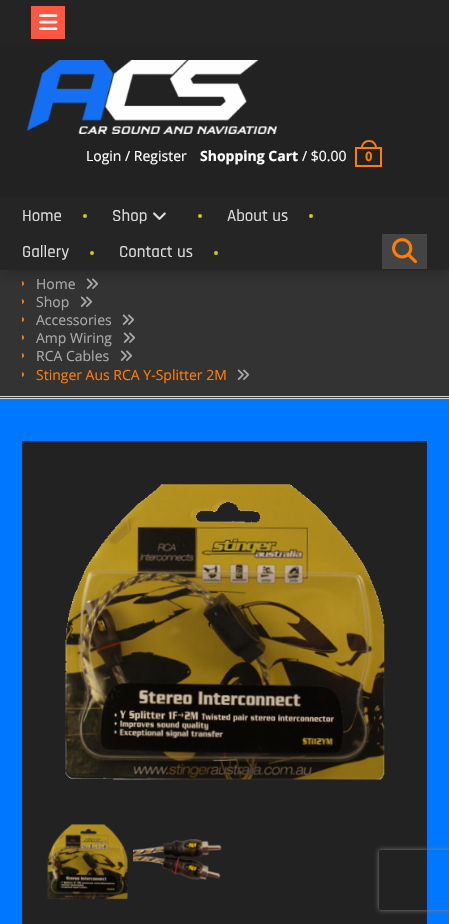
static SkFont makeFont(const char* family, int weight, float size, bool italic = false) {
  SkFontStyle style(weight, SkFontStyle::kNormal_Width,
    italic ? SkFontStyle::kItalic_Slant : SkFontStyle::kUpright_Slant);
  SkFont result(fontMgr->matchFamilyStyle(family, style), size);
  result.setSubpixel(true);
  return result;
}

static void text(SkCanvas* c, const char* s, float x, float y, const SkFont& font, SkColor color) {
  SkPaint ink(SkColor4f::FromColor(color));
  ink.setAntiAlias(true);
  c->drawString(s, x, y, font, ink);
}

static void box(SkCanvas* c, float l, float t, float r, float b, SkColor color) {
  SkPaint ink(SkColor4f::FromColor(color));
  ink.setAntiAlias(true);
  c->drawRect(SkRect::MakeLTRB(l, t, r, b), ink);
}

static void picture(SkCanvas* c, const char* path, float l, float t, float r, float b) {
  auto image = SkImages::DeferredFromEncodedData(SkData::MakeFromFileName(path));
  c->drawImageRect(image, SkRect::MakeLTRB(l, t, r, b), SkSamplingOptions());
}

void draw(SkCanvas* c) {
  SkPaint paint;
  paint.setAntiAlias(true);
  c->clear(0xff0077ff);
  box(c, 0, 0, 449, 45, 0xff242424);
  box(c, 31, 6, 65, 39, 0xfffa5742);
  picture(c, "img_01.png", 39, 14, 58, 30);
  box(c, 0, 270, 449, 398, 0xff333333);
  paint.setColor(0x42000000);
  paint.setMaskFilter(SkMaskFilter::MakeBlur(kNormal_SkBlurStyle, 7.5f));
  c->drawRect(SkRect::MakeLTRB(0, 200, 449, 272), paint);
  paint.setMaskFilter(nullptr);
  box(c, 0, 45, 449, 198, 0xff222222);
  picture(c, "img_02.png", 27, 60, 277, 134);
  SkFont face1 = makeFont("Open Sans", 400, 14);
  text(c, "Login / Register", 86, 161, face1, 0xffffffff);
  SkFont face2 = makeFont("Open Sans", 700, 14);
  text(c, "Shopping Cart", 200, 161, face2, 0xffffffff);
  text(c, "/ $0.00", 302, 161, face1, 0xffffffff);
  paint.setColor(0xffff7d06);
  c->drawPath(SkPathBuilder(SkPathFillType::kEvenOdd).moveTo(369, 140).cubicTo(373.5f, 140, 377, 143.5f, 377, 148).lineTo(361, 148).cubicTo(361, 143.5f, 364.5f, 140, 369, 140).close().moveTo(369, 142).cubicTo(372.5f, 142, 375, 144.5f, 375, 148).lineTo(363, 148).cubicTo(363, 144.5f, 365.5f, 142, 369, 142).close().detach(), paint);
  paint.setStyle(SkPaint::kStroke_Style);
  paint.setStrokeWidth(2);
  c->drawRect(SkRect::MakeLTRB(356, 148, 381, 166), paint);
  SkFont face3 = makeFont("Open Sans", 700, 13);
  text(c, "0", 365, 161, face3, 0xffff7d06);
  box(c, 0, 198, 449, 270, 0xff252525);
  SkFont face4 = makeFont("Rajdhani", 500, 17);
  text(c, "Home", 22, 221, face4, 0xffdddddd);
  paint.setStyle(SkPaint::kFill_Style);
  paint.setColor(0xffcccc11);
  c->drawCircle(85, 216, 2, paint);
  text(c, "Shop", 112, 221, face4, 0xffdddddd);
  picture(c, "img_03.png", 153, 212, 166, 220);
  c->drawCircle(200, 216, 2, paint);
  text(c, "About us", 227, 221, face4, 0xffdddddd);
  c->drawCircle(311, 216, 2, paint);
  text(c, "Gallery", 22, 257, face4, 0xffdddddd);
  c->drawCircle(92, 253, 2, paint);
  text(c, "Contact us", 119, 257, face4, 0xffdddddd);
  c->drawCircle(216, 253, 2, paint);
  box(c, 382, 234, 427, 269, 0xff444444);
  picture(c, "img_04.png", 392, 238, 417, 264);
  box(c, 0, 396, 449, 397, 0xffdddddd);
  box(c, 0, 398, 449, 399, 0xffdddddd);
  paint.setColor(0xffff7d06);
  c->drawPath(SkPathBuilder().moveTo(22, 281).lineTo(21.5f, 281).cubicTo(23, 281, 24, 282, 24, 283.5f).cubicTo(24, 285, 23, 286, 21.5f, 286).lineTo(22, 286).close().detach(), paint);
  text(c, "Home", 36, 289, face1, 0xffaaaaaa);
  picture(c, "img_05.png", 86, 278, 99, 289);
  c->drawPath(SkPathBuilder().moveTo(22, 299).lineTo(21.5f, 299).cubicTo(23, 299, 24, 300, 24, 301.5f).cubicTo(24, 303, 23, 304, 21.5f, 304).lineTo(22, 304).close().detach(), paint);
  text(c, "Shop", 36, 307, face1, 0xffaaaaaa);
  picture(c, "img_06.png", 80, 296, 93, 307);
  c->drawPath(SkPathBuilder().moveTo(22, 317).lineTo(21.5f, 317).cubicTo(23, 317, 24, 318, 24, 319.5f).cubicTo(24, 321, 23, 322, 21.5f, 322).lineTo(22, 322).close().detach(), paint);
  text(c, "Accessories", 36, 325, face1, 0xffaaaaaa);
  picture(c, "img_06.png", 122, 314, 135, 325);
  c->drawPath(SkPathBuilder().moveTo(22, 335).lineTo(21.5f, 335).cubicTo(23, 335, 24, 336, 24, 337.5f).cubicTo(24, 339, 23, 340, 21.5f, 340).lineTo(22, 340).close().detach(), paint);
  text(c, "Amp Wiring", 36, 343, face1, 0xffaaaaaa);
  picture(c, "img_06.png", 123, 332, 136, 343);
  c->drawPath(SkPathBuilder().moveTo(22, 353).lineTo(21.5f, 353).cubicTo(23, 353, 24, 354, 24, 355.5f).cubicTo(24, 357, 23, 358, 21.5f, 358).lineTo(22, 358).close().detach(), paint);
  text(c, "RCA Cables", 36, 361, face1, 0xffaaaaaa);
  picture(c, "img_06.png", 120, 350, 133, 361);
  c->drawPath(SkPathBuilder().moveTo(22, 372).lineTo(21.5f, 372).cubicTo(23, 372, 24, 373, 24, 374.5f).cubicTo(24, 376, 23, 377, 21.5f, 377).lineTo(22, 377).close().detach(), paint);
  text(c, "Stinger Aus RCA Y-Splitter 2M", 36, 380, face1, 0xffff7d06);
  picture(c, "img_06.png", 237, 369, 250, 380);
  box(c, 22, 441, 427, 924, 0xff222222);
  picture(c, "img_07.png", 65, 484, 385, 780);
  picture(c, "img_08.png", 47, 824, 128, 900);
  picture(c, "img_09.png", 133, 839, 222, 880);
  c->save();
  c->clipPath(SkPathBuilder(SkPathFillType::kEvenOdd).moveTo(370, 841).lineTo(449, 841).lineTo(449, 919).lineTo(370, 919).close().moveTo(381, 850).lineTo(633, 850).cubicTo(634, 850, 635, 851, 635, 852).lineTo(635, 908).cubicTo(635, 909, 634, 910, 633, 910).lineTo(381, 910).cubicTo(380, 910, 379, 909, 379, 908).lineTo(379, 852).cubicTo(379, 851, 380, 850, 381, 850).close().detach(), true);
  paint.setColor(0xff808080);
  paint.setMaskFilter(SkMaskFilter::MakeBlur(kNormal_SkBlurStyle, 2.5f));
  c->drawRoundRect(SkRect::MakeLTRB(379, 850, 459, 910), 2, 2, paint);
  paint.setMaskFilter(nullptr);
  c->restore();
}
